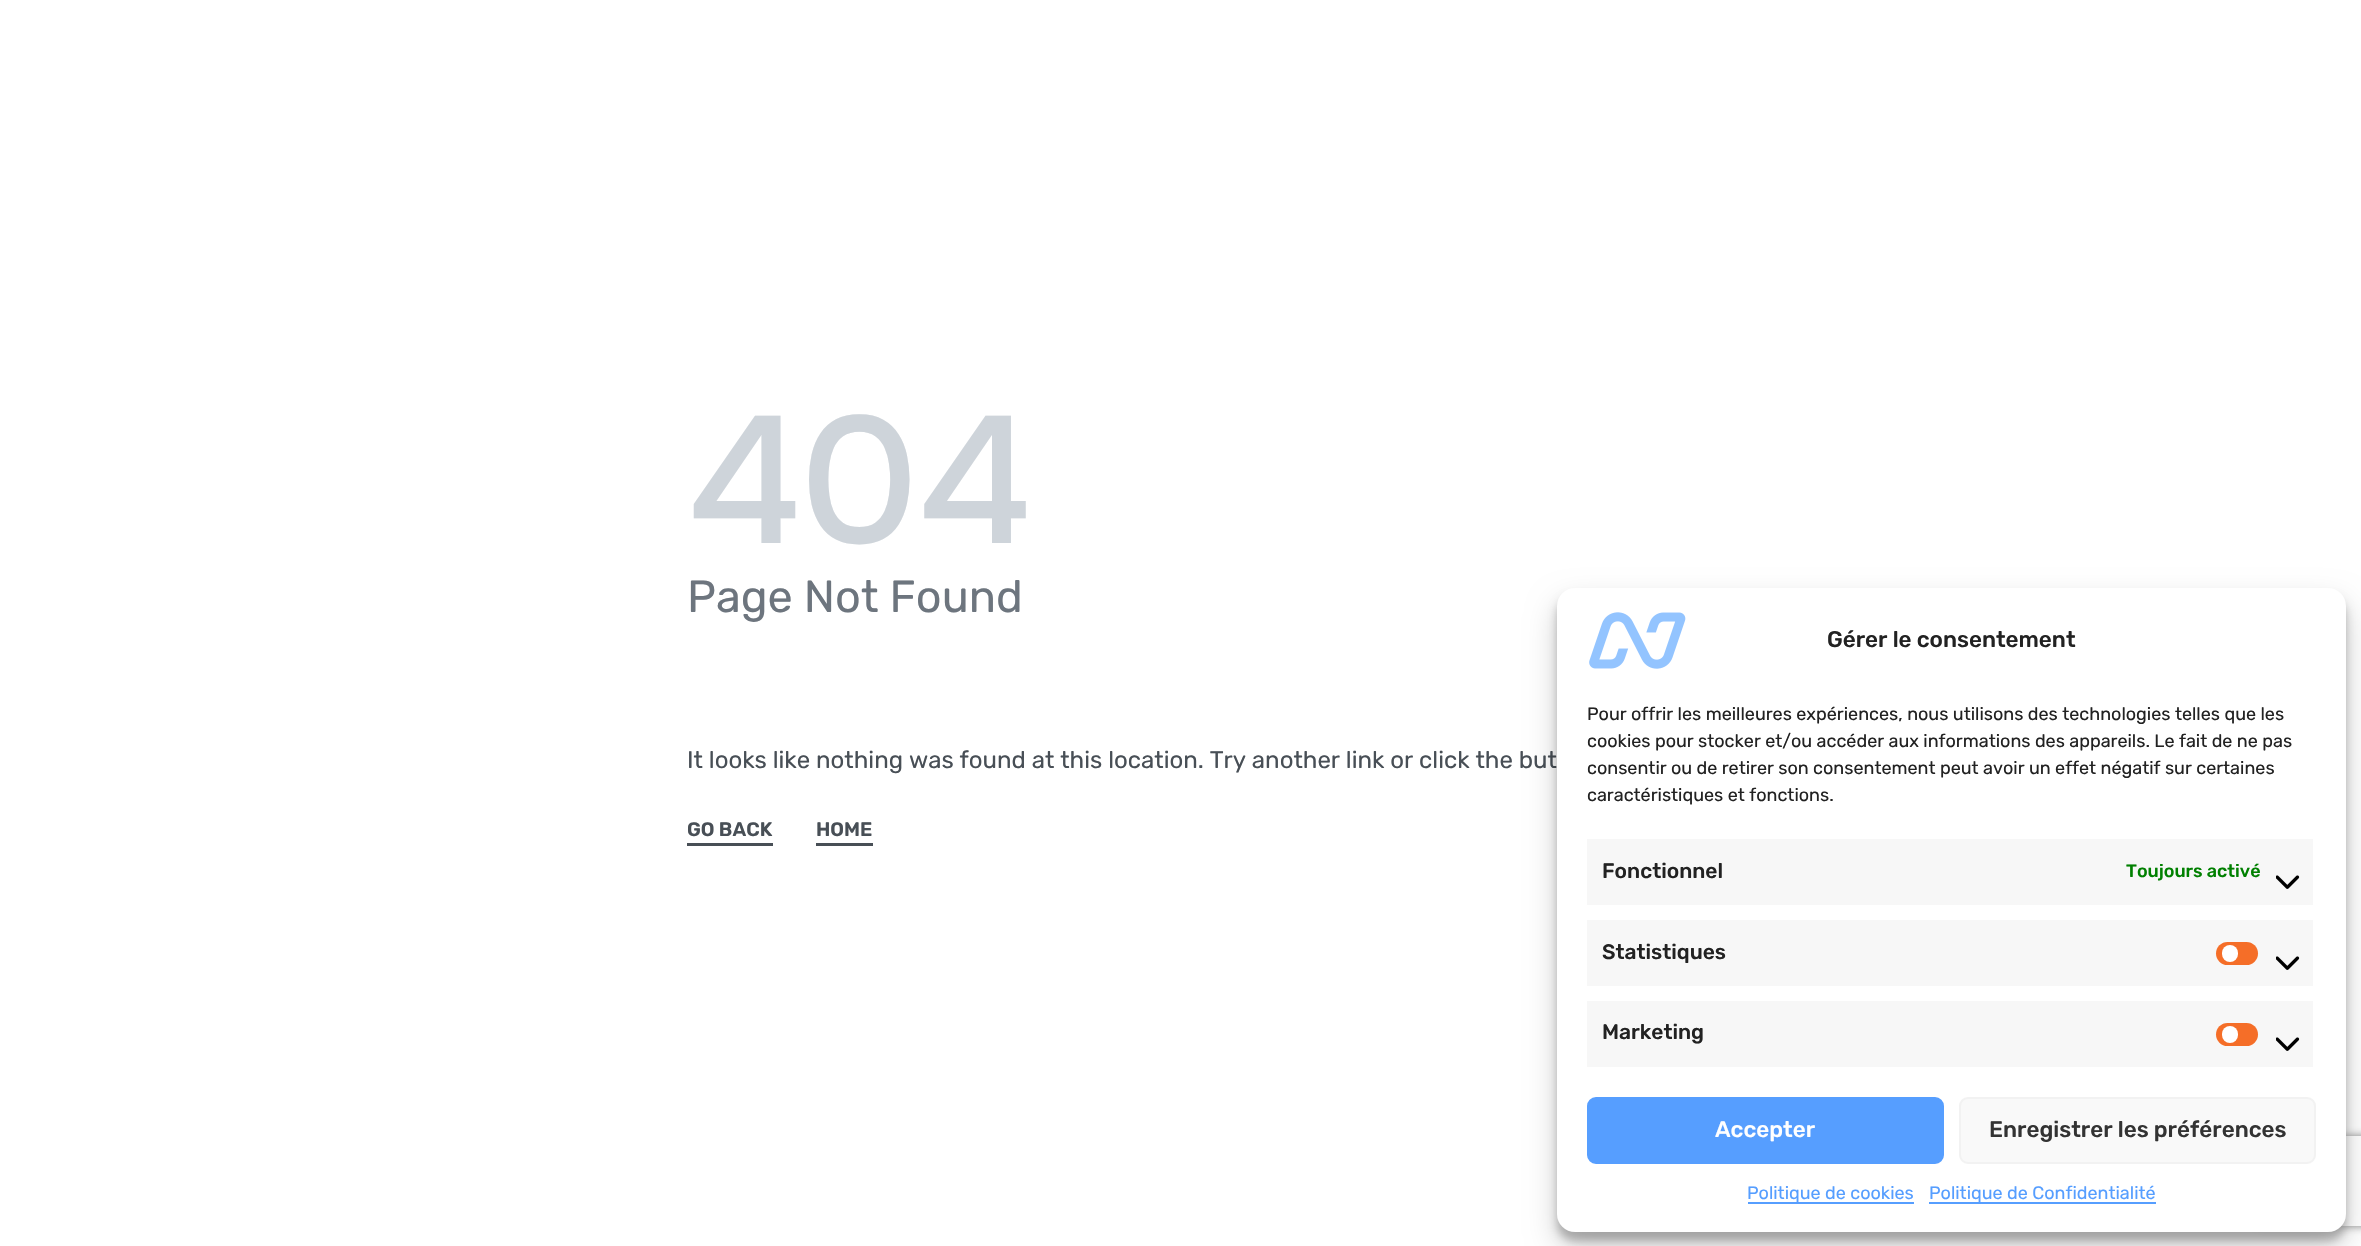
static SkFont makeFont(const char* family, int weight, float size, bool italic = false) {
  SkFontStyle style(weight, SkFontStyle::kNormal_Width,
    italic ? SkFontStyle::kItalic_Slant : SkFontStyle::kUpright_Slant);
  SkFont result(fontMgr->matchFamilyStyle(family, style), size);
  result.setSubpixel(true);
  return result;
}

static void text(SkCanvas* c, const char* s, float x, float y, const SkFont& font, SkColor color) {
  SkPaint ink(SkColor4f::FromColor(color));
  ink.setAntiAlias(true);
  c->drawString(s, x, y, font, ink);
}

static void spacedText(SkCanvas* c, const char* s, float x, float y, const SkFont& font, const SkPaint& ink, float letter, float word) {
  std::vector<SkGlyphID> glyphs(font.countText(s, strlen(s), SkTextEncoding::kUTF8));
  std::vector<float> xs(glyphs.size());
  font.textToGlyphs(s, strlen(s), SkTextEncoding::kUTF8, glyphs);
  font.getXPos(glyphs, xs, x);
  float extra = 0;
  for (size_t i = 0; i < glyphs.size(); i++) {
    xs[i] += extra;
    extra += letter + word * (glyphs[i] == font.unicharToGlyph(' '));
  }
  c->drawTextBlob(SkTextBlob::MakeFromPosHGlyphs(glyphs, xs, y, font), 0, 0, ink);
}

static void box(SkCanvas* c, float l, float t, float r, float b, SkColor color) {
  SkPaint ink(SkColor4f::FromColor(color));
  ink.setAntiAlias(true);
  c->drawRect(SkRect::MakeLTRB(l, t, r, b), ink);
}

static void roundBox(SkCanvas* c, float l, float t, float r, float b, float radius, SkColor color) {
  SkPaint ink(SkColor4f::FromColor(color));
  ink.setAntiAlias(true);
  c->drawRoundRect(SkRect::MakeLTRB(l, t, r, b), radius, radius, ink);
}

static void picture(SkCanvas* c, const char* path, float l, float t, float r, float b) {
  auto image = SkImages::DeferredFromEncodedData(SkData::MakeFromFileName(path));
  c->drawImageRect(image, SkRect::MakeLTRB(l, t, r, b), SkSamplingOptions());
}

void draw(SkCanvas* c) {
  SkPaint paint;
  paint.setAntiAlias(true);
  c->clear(0xffffffff);
  SkFont face1 = makeFont("Onest", 500, 180);
  paint.setColor(0xffced4da);
  spacedText(c, "404", 687, 543, face1, paint, -1.5f, 0);
  SkFont face2 = makeFont("Rubik", 300, 45);
  text(c, "Page Not Found", 687, 612, face2, 0xff6d757e);
  SkFont face3 = makeFont("Rubik", 300, 24);
  text(c, "It looks like nothing was found at this location. Try another link or click the but", 687, 768, face3, 0xff484f56);
  SkFont face4 = makeFont("Rubik", 600, 19.5f);
  text(c, "GO BACK", 687, 836, face4, 0xff484f56);
  box(c, 687, 843, 773, 846, 0xff484f56);
  text(c, "HOME", 816, 836, face4, 0xff484f56);
  box(c, 816, 843, 873, 846, 0xff484f56);
  paint.setColor(0x3b000000);
  paint.setMaskFilter(SkMaskFilter::MakeBlur(kNormal_SkBlurStyle, 4.5f));
  c->drawRoundRect(SkRect::MakeLTRB(1557, 597, 2346, 1241), 18, 18, paint);
  paint.setMaskFilter(nullptr);
  paint.setColor(0x30000000);
  paint.setMaskFilter(SkMaskFilter::MakeBlur(kNormal_SkBlurStyle, 15));
  c->drawRoundRect(SkRect::MakeLTRB(1557, 603, 2346, 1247), 18, 18, paint);
  paint.setMaskFilter(nullptr);
  c->save();
  c->clipPath(SkPathBuilder(SkPathFillType::kEvenOdd).moveTo(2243, 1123).lineTo(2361, 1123).lineTo(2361, 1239).lineTo(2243, 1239).close().moveTo(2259, 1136).lineTo(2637, 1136).cubicTo(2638.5f, 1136, 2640, 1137.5f, 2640, 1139).lineTo(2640, 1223).cubicTo(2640, 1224.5f, 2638.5f, 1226, 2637, 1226).lineTo(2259, 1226).cubicTo(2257.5f, 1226, 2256, 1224.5f, 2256, 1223).lineTo(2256, 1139).cubicTo(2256, 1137.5f, 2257.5f, 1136, 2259, 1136).close().detach(), true);
  paint.setColor(0xff808080);
  paint.setMaskFilter(SkMaskFilter::MakeBlur(kNormal_SkBlurStyle, 4));
  c->drawRoundRect(SkRect::MakeLTRB(2256, 1136, 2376, 1226), 3, 3, paint);
  paint.setMaskFilter(nullptr);
  c->restore();
  roundBox(c, 1557, 588, 2346, 1232, 18, 0xffffffff);
  picture(c, "img_01.png", 1589, 612, 1686, 669);
  SkFont face5 = makeFont("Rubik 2", 300, 22.5f);
  text(c, "Gérer le consentement", 1827, 647, face5, 0xff222222);
  SkFont face6 = makeFont("Rubik", 300, 18);
  text(c, "Pour offrir les meilleures expériences, nous utilisons des technologies telles que les", 1587, 720, face6, 0xff222222);
  text(c, "cookies pour stocker et/ou accéder aux informations des appareils. Le fait de ne pas", 1587, 747, face6, 0xff222222);
  text(c, "consentir ou de retirer son consentement peut avoir un effet négatif sur certaines", 1587, 774, face6, 0xff222222);
  text(c, "caractéristiques et fonctions.", 1587, 801, face6, 0xff222222);
  box(c, 1587, 839, 2313, 905, 0xfff7f7f7);
  SkFont face7 = makeFont("Rubik 2", 300, 21);
  text(c, "Fonctionnel", 1602, 878, face7, 0xff222222);
  SkFont face8 = makeFont("Rubik 2", 300, 18);
  text(c, "Toujours activé", 2126, 877, face8, 0xff008000);
  picture(c, "img_02.png", 2276, 875, 2300, 889);
  box(c, 1587, 920, 2313, 986, 0xfff7f7f7);
  text(c, "Statistiques", 1602, 959, face7, 0xff222222);
  roundBox(c, 2216, 942, 2258, 965, 11.5f, 0xfff56e28);
  roundBox(c, 2222, 945, 2238, 962, 8, 0xffffffff);
  picture(c, "img_02.png", 2276, 956, 2300, 970);
  box(c, 1587, 1001, 2313, 1067, 0xfff7f7f7);
  text(c, "Marketing", 1602, 1039, face7, 0xff222222);
  roundBox(c, 2216, 1023, 2258, 1046, 11.5f, 0xfff56e28);
  roundBox(c, 2222, 1026, 2238, 1043, 8, 0xffffffff);
  picture(c, "img_02.png", 2276, 1037, 2300, 1051);
  paint.setColor(0xff569eff);
  c->drawRoundRect(SkRect::MakeLTRB(1588, 1098, 1943, 1163), 8, 8, paint);
  paint.setStyle(SkPaint::kStroke_Style);
  paint.setStrokeWidth(2);
  c->drawRoundRect(SkRect::MakeLTRB(1588, 1098, 1943, 1163), 8, 8, paint);
  text(c, "Accepter", 1715, 1137, face5, 0xffffffff);
  paint.setStyle(SkPaint::kFill_Style);
  paint.setColor(0xfff9f9f9);
  c->drawRoundRect(SkRect::MakeLTRB(1960, 1098, 2315, 1163), 8, 8, paint);
  paint.setStyle(SkPaint::kStroke_Style);
  paint.setColor(0xfff2f2f2);
  c->drawRoundRect(SkRect::MakeLTRB(1960, 1098, 2315, 1163), 8, 8, paint);
  text(c, "Enregistrer les préférences", 1989, 1137, face5, 0xff333333);
  box(c, 1748, 1202, 1914, 1204, 0xff569eff);
  text(c, "Politique de cookies", 1747, 1199, face6, 0xff569eff);
  box(c, 1929, 1202, 2156, 1204, 0xff569eff);
  text(c, "Politique de Confidentialité", 1929, 1199, face6, 0xff569eff);
}
